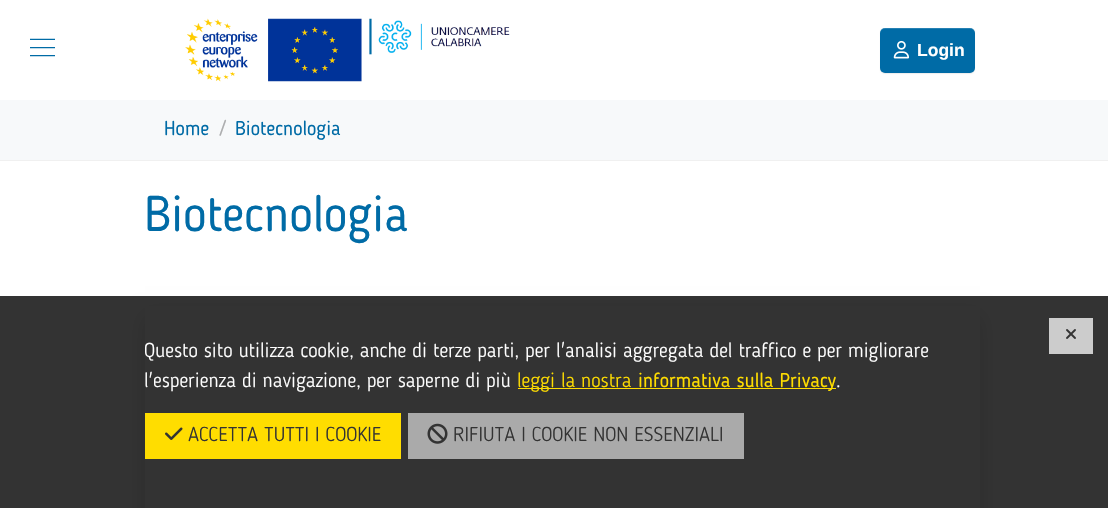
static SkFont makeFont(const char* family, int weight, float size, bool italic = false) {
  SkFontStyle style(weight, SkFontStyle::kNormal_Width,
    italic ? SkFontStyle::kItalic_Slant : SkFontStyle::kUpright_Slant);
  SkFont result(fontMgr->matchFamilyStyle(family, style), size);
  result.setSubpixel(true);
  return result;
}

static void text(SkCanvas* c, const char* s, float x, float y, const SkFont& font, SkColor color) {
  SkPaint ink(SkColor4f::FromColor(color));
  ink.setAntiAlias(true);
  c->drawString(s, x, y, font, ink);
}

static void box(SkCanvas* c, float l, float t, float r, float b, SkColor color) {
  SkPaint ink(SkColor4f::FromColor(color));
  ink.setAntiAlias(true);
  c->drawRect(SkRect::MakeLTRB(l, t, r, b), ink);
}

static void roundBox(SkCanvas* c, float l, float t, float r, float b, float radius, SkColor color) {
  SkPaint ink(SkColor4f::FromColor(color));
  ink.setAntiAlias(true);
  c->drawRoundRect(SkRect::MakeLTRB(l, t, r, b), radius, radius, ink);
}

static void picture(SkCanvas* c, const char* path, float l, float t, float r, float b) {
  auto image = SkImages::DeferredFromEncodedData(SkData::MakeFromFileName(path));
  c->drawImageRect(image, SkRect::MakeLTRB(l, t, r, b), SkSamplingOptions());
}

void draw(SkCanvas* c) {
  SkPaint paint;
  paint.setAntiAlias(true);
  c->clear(0xffffffff);
  picture(c, "img_01.png", 30, 38, 55, 57);
  picture(c, "img_02.png", 185, 18, 510, 82);
  paint.setColor(0x12000000);
  paint.setMaskFilter(SkMaskFilter::MakeBlur(kNormal_SkBlurStyle, 0.5f));
  c->drawRoundRect(SkRect::MakeLTRB(880, 29, 975, 74), 5, 5, paint);
  paint.setMaskFilter(nullptr);
  roundBox(c, 880, 28, 975, 73, 5, 0xff006ba6);
  paint.setColor(0x26ffffff);
  c->drawPath(SkPathBuilder().moveTo(885, 29).lineTo(970, 29).cubicTo(973, 29, 975, 31, 975, 34).cubicTo(975, 24, 961, 28, 956, 28).lineTo(899, 28).cubicTo(894, 28, 880, 24, 880, 34).cubicTo(880, 31, 882, 29, 885, 29).close().detach(), paint);
  picture(c, "img_03.png", 893, 40, 910, 59);
  SkFont face1 = makeFont("Liberation Sans", 700, 17.5f);
  text(c, "Login", 917, 56, face1, 0xffffffff);
  box(c, 0, 100, 1108, 160, 0xfff7f9fa);
  box(c, 0, 160, 1108, 161, 0xfff0f0f0);
  SkFont face2 = makeFont("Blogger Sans", 400, 20);
  text(c, "Home", 164, 135, face2, 0xff006ba6);
  text(c, "/", 220, 135, face2, 0xffadaeaf);
  text(c, "Biotecnologia", 235, 135, face2, 0xff006ba6);
  SkFont face3 = makeFont("Blogger Sans", 400, 50);
  text(c, "Biotecnologia", 144, 231, face3, 0xff006ba6);
  paint.setColor(0x26000000);
  paint.setMaskFilter(SkMaskFilter::MakeBlur(kNormal_SkBlurStyle, 10));
  c->drawRect(SkRect::MakeLTRB(145, 316, 980, 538), paint);
  paint.setMaskFilter(nullptr);
  box(c, 145, 306, 980, 508, 0xffffffff);
  box(c, 0, 296, 1108, 508, 0xcc000000);
  SkFont face4 = makeFont("Blogger Sans", 300, 20);
  text(c, "Questo sito utilizza cookie, anche di terze parti, per l'analisi aggregata del traffico e per migliorare", 144, 357, face4, 0xffffffff);
  text(c, "l'esperienza di navigazione, per saperne di più", 144, 387, face4, 0xffffffff);
  box(c, 518, 388, 836, 389, 0xffffdd00);
  text(c, "leggi la nostra", 517, 387, face4, 0xffffdd00);
  text(c, "informativa sulla Privacy", 638, 387, face2, 0xffffdd00);
  text(c, ".", 836, 387, face4, 0xffffffff);
  box(c, 1049, 318, 1093, 354, 0xffcccccc);
  picture(c, "img_04.png", 1066, 329, 1076, 339);
  box(c, 145, 413, 401, 459, 0xffffdd00);
  picture(c, "img_05.png", 165, 427, 183, 440);
  text(c, "ACCETTA TUTTI I COOKIE", 188, 441, face4, 0xff333333);
  box(c, 408, 413, 744, 459, 0xffaaaaaa);
  picture(c, "img_06.png", 427, 423, 448, 444);
  text(c, "RIFIUTA I COOKIE NON ESSENZIALI", 453, 441, face4, 0xff333333);
}
